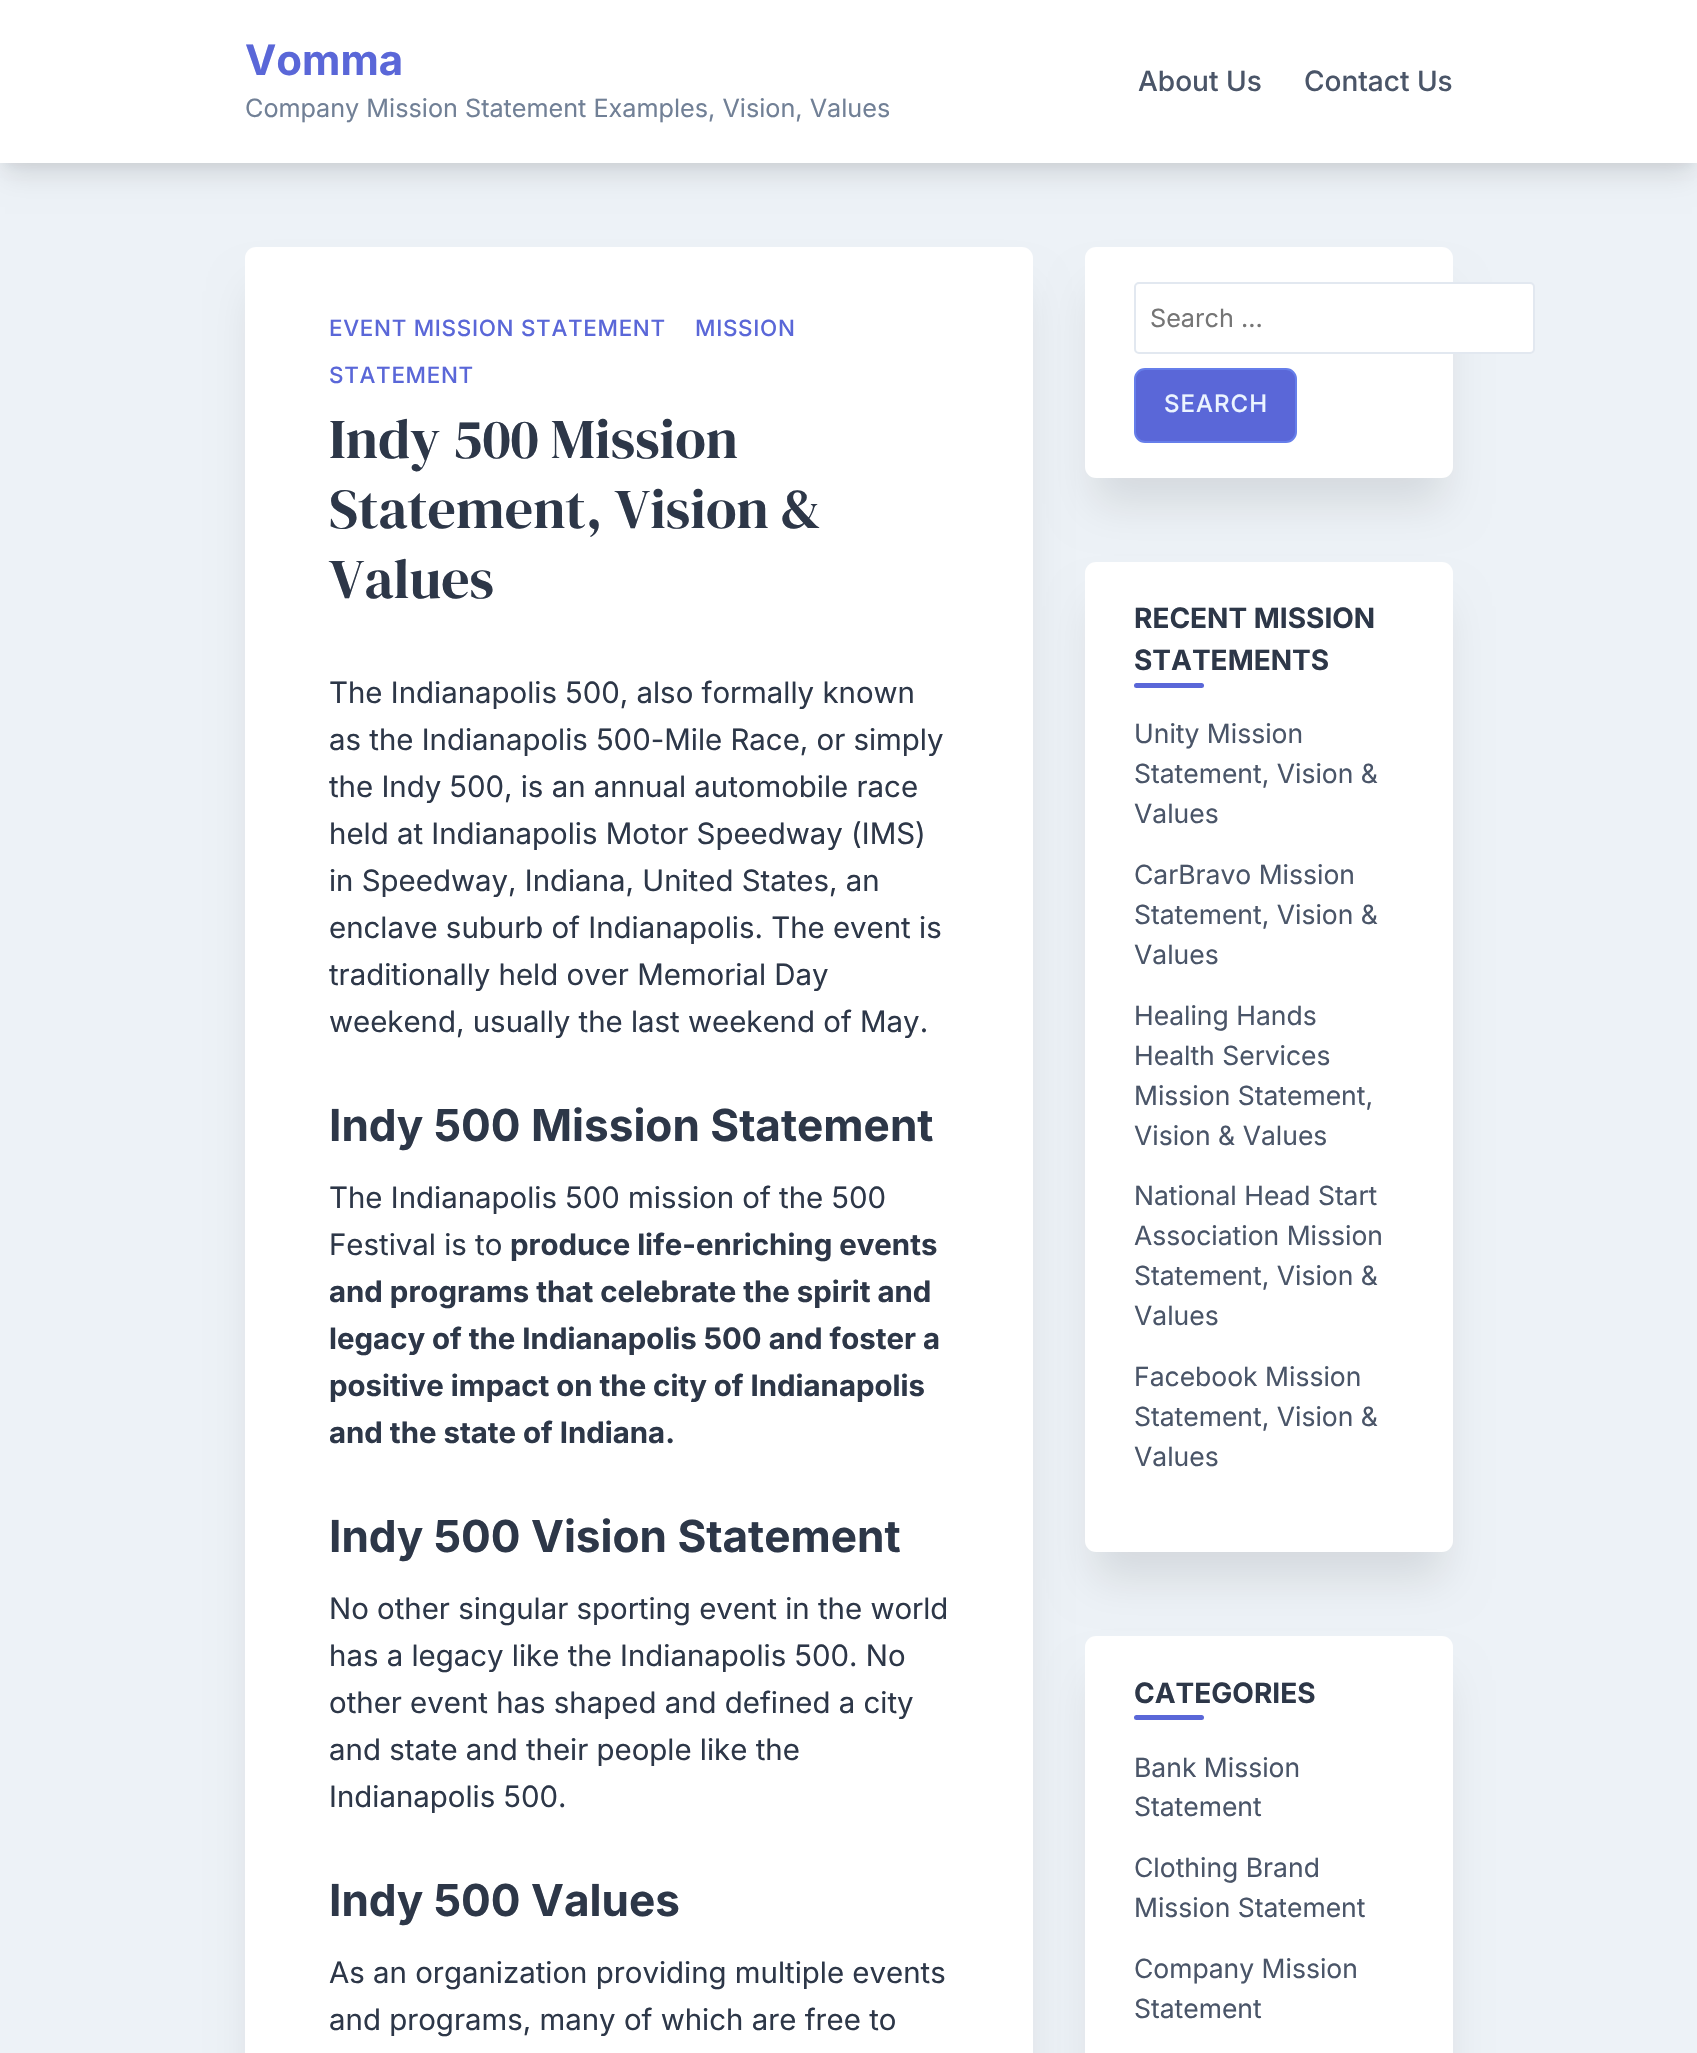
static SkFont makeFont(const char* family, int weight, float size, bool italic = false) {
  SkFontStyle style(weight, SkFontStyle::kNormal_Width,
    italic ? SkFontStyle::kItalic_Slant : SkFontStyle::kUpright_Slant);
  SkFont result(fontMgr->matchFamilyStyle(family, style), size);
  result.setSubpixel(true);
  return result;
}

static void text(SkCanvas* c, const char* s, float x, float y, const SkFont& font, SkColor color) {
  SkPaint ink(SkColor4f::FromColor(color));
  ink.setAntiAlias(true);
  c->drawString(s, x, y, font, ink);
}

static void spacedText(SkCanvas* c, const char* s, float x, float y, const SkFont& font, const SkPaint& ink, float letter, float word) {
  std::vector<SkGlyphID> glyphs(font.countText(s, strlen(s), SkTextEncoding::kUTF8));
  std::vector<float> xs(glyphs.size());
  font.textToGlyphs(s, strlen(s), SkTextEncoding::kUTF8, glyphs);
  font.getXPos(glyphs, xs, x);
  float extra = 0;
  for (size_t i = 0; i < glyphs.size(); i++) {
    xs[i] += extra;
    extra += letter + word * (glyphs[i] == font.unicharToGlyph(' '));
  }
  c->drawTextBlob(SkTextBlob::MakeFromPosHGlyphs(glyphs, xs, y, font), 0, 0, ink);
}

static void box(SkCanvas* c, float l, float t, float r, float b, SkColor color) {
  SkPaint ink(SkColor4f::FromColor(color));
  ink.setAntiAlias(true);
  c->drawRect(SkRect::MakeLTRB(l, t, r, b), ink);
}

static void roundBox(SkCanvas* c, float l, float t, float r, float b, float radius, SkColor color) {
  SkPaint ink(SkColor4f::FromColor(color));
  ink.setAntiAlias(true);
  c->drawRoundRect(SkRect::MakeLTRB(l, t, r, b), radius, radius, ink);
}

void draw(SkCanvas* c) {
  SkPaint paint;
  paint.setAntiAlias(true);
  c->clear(0xffedf2f7);
  paint.setColor(0x0d000000);
  paint.setMaskFilter(SkMaskFilter::MakeBlur(kNormal_SkBlurStyle, 5));
  c->drawRect(SkRect::MakeLTRB(4, 11, 1694, 166), paint);
  paint.setMaskFilter(nullptr);
  paint.setColor(0x1a000000);
  paint.setMaskFilter(SkMaskFilter::MakeBlur(kNormal_SkBlurStyle, 13));
  c->drawRect(SkRect::MakeLTRB(5, 23, 1692, 175), paint);
  paint.setMaskFilter(nullptr);
  box(c, 0, 0, 1697, 163, 0xffffffff);
  SkFont face1 = makeFont("Inter", 700, 42);
  text(c, "Vomma", 245, 75, face1, 0xff5a67d8);
  SkFont face2 = makeFont("Inter", 400, 25.2f);
  text(c, "Company Mission Statement Examples, Vision, Values", 245, 117, face2, 0xff718096);
  SkFont face3 = makeFont("Inter", 500, 28);
  text(c, "About Us", 1138, 91, face3, 0xff4a5568);
  text(c, "Contact Us", 1304, 91, face3, 0xff4a5568);
  paint.setMaskFilter(SkMaskFilter::MakeBlur(kNormal_SkBlurStyle, 22));
  c->drawRoundRect(SkRect::MakeLTRB(254, 291, 1024, 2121), 2, 2, paint);
  paint.setMaskFilter(nullptr);
  roundBox(c, 245, 247, 1033, 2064, 11, 0xffffffff);
  SkFont face4 = makeFont("Inter", 500, 22.4f);
  paint.setColor(0xff5a67d8);
  spacedText(c, "EVENT MISSION STATEMENT", 329, 336, face4, paint, 0.7f, 0);
  spacedText(c, "MISSION", 695, 336, face4, paint, 0.7f, 0);
  spacedText(c, "STATEMENT", 329, 383, face4, paint, 0.7f, 0);
  SkFont face5 = makeFont("DM Serif Display", 400, 56);
  text(c, "Indy 500 Mission", 329, 458, face5, 0xff2d3748);
  text(c, "Statement, Vision &", 329, 528, face5, 0xff2d3748);
  text(c, "Values", 329, 598, face5, 0xff2d3748);
  SkFont face6 = makeFont("Inter", 400, 29.4f);
  text(c, "The Indianapolis 500, also formally known", 329, 703, face6, 0xff2d3748);
  text(c, "as the Indianapolis 500-Mile Race, or simply", 329, 750, face6, 0xff2d3748);
  text(c, "the Indy 500, is an annual automobile race", 329, 797, face6, 0xff2d3748);
  text(c, "held at Indianapolis Motor Speedway (IMS)", 329, 844, face6, 0xff2d3748);
  text(c, "in Speedway, Indiana, United States, an", 329, 891, face6, 0xff2d3748);
  text(c, "enclave suburb of Indianapolis. The event is", 329, 938, face6, 0xff2d3748);
  text(c, "traditionally held over Memorial Day", 329, 985, face6, 0xff2d3748);
  text(c, "weekend, usually the last weekend of May.", 329, 1032, face6, 0xff2d3748);
  SkFont face7 = makeFont("Inter", 700, 44.1f);
  text(c, "Indy 500 Mission Statement", 329, 1141, face7, 0xff2d3748);
  text(c, "The Indianapolis 500 mission of the 500", 329, 1208, face6, 0xff2d3748);
  text(c, "Festival is to", 329, 1255, face6, 0xff2d3748);
  SkFont face8 = makeFont("Inter", 700, 29.4f);
  text(c, "produce life-enriching events", 510, 1255, face8, 0xff2d3748);
  text(c, "and programs that celebrate the spirit and", 329, 1302, face8, 0xff2d3748);
  text(c, "legacy of the Indianapolis 500 and foster a", 329, 1349, face8, 0xff2d3748);
  text(c, "positive impact on the city of Indianapolis", 329, 1396, face8, 0xff2d3748);
  text(c, "and the state of Indiana.", 329, 1443, face8, 0xff2d3748);
  text(c, "Indy 500 Vision Statement", 329, 1552, face7, 0xff2d3748);
  text(c, "No other singular sporting event in the world", 329, 1619, face6, 0xff2d3748);
  text(c, "has a legacy like the Indianapolis 500. No", 329, 1666, face6, 0xff2d3748);
  text(c, "other event has shaped and defined a city", 329, 1713, face6, 0xff2d3748);
  text(c, "and state and their people like the", 329, 1760, face6, 0xff2d3748);
  text(c, "Indianapolis 500.", 329, 1807, face6, 0xff2d3748);
  text(c, "Indy 500 Values", 329, 1916, face7, 0xff2d3748);
  text(c, "As an organization providing multiple events", 329, 1983, face6, 0xff2d3748);
  text(c, "and programs, many of which are free to", 329, 2030, face6, 0xff2d3748);
  paint.setColor(0x1a000000);
  paint.setMaskFilter(SkMaskFilter::MakeBlur(kNormal_SkBlurStyle, 22));
  c->drawRoundRect(SkRect::MakeLTRB(1094, 291, 1444, 504), 2, 2, paint);
  paint.setMaskFilter(nullptr);
  roundBox(c, 1085, 247, 1453, 478, 11, 0xffffffff);
  paint.setColor(0xffffffff);
  c->drawRoundRect(SkRect::MakeLTRB(1135, 283, 1534, 353), 4, 4, paint);
  paint.setStyle(SkPaint::kStroke_Style);
  paint.setStrokeWidth(2);
  paint.setColor(0xffe2e8f0);
  c->drawRoundRect(SkRect::MakeLTRB(1135, 283, 1534, 353), 4, 4, paint);
  text(c, "Search …", 1150, 327, face2, 0xff757575);
  paint.setStyle(SkPaint::kFill_Style);
  paint.setColor(0xff5a67d8);
  c->drawRoundRect(SkRect::MakeLTRB(1135, 369, 1296, 442), 10, 10, paint);
  paint.setStyle(SkPaint::kStroke_Style);
  paint.setColor(0xff667eea);
  c->drawRoundRect(SkRect::MakeLTRB(1135, 369, 1296, 442), 10, 10, paint);
  SkFont face9 = makeFont("Inter", 500, 24);
  paint.setStyle(SkPaint::kFill_Style);
  paint.setColor(0xffebf4ff);
  spacedText(c, "SEARCH", 1164, 412, face9, paint, 1, 0);
  paint.setColor(0x1a000000);
  paint.setMaskFilter(SkMaskFilter::MakeBlur(kNormal_SkBlurStyle, 22));
  c->drawRoundRect(SkRect::MakeLTRB(1094, 606, 1444, 1579), 2, 2, paint);
  paint.setMaskFilter(nullptr);
  roundBox(c, 1085, 562, 1453, 1552, 11, 0xffffffff);
  SkFont face10 = makeFont("Inter", 700, 28);
  text(c, "RECENT MISSION", 1134, 628, face10, 0xff2d3748);
  text(c, "STATEMENTS", 1134, 670, face10, 0xff2d3748);
  roundBox(c, 1134, 683, 1204, 688, 2.5f, 0xff5a67d8);
  SkFont face11 = makeFont("Inter", 400, 26.5f);
  text(c, "Unity Mission", 1134, 743, face11, 0xff4a5568);
  text(c, "Statement, Vision &", 1134, 783, face11, 0xff4a5568);
  text(c, "Values", 1134, 823, face11, 0xff4a5568);
  text(c, "CarBravo Mission", 1134, 884, face11, 0xff4a5568);
  text(c, "Statement, Vision &", 1134, 924, face11, 0xff4a5568);
  text(c, "Values", 1134, 964, face11, 0xff4a5568);
  text(c, "Healing Hands", 1134, 1025, face11, 0xff4a5568);
  text(c, "Health Services", 1134, 1065, face11, 0xff4a5568);
  text(c, "Mission Statement,", 1134, 1105, face11, 0xff4a5568);
  text(c, "Vision & Values", 1134, 1145, face11, 0xff4a5568);
  text(c, "National Head Start", 1134, 1205, face11, 0xff4a5568);
  text(c, "Association Mission", 1134, 1245, face11, 0xff4a5568);
  text(c, "Statement, Vision &", 1134, 1285, face11, 0xff4a5568);
  text(c, "Values", 1134, 1325, face11, 0xff4a5568);
  text(c, "Facebook Mission", 1134, 1386, face11, 0xff4a5568);
  text(c, "Statement, Vision &", 1134, 1426, face11, 0xff4a5568);
  text(c, "Values", 1134, 1466, face11, 0xff4a5568);
  paint.setMaskFilter(SkMaskFilter::MakeBlur(kNormal_SkBlurStyle, 22));
  c->drawRoundRect(SkRect::MakeLTRB(1094, 1680, 1444, 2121), 2, 2, paint);
  paint.setMaskFilter(nullptr);
  roundBox(c, 1085, 1636, 1453, 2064, 11, 0xffffffff);
  text(c, "CATEGORIES", 1134, 1703, face10, 0xff2d3748);
  roundBox(c, 1134, 1715, 1204, 1720, 2.5f, 0xff5a67d8);
  text(c, "Bank Mission", 1134, 1777, face11, 0xff4a5568);
  text(c, "Statement", 1134, 1816, face11, 0xff4a5568);
  text(c, "Clothing Brand", 1134, 1877, face11, 0xff4a5568);
  text(c, "Mission Statement", 1134, 1917, face11, 0xff4a5568);
  text(c, "Company Mission", 1134, 1978, face11, 0xff4a5568);
  text(c, "Statement", 1134, 2018, face11, 0xff4a5568);
}
